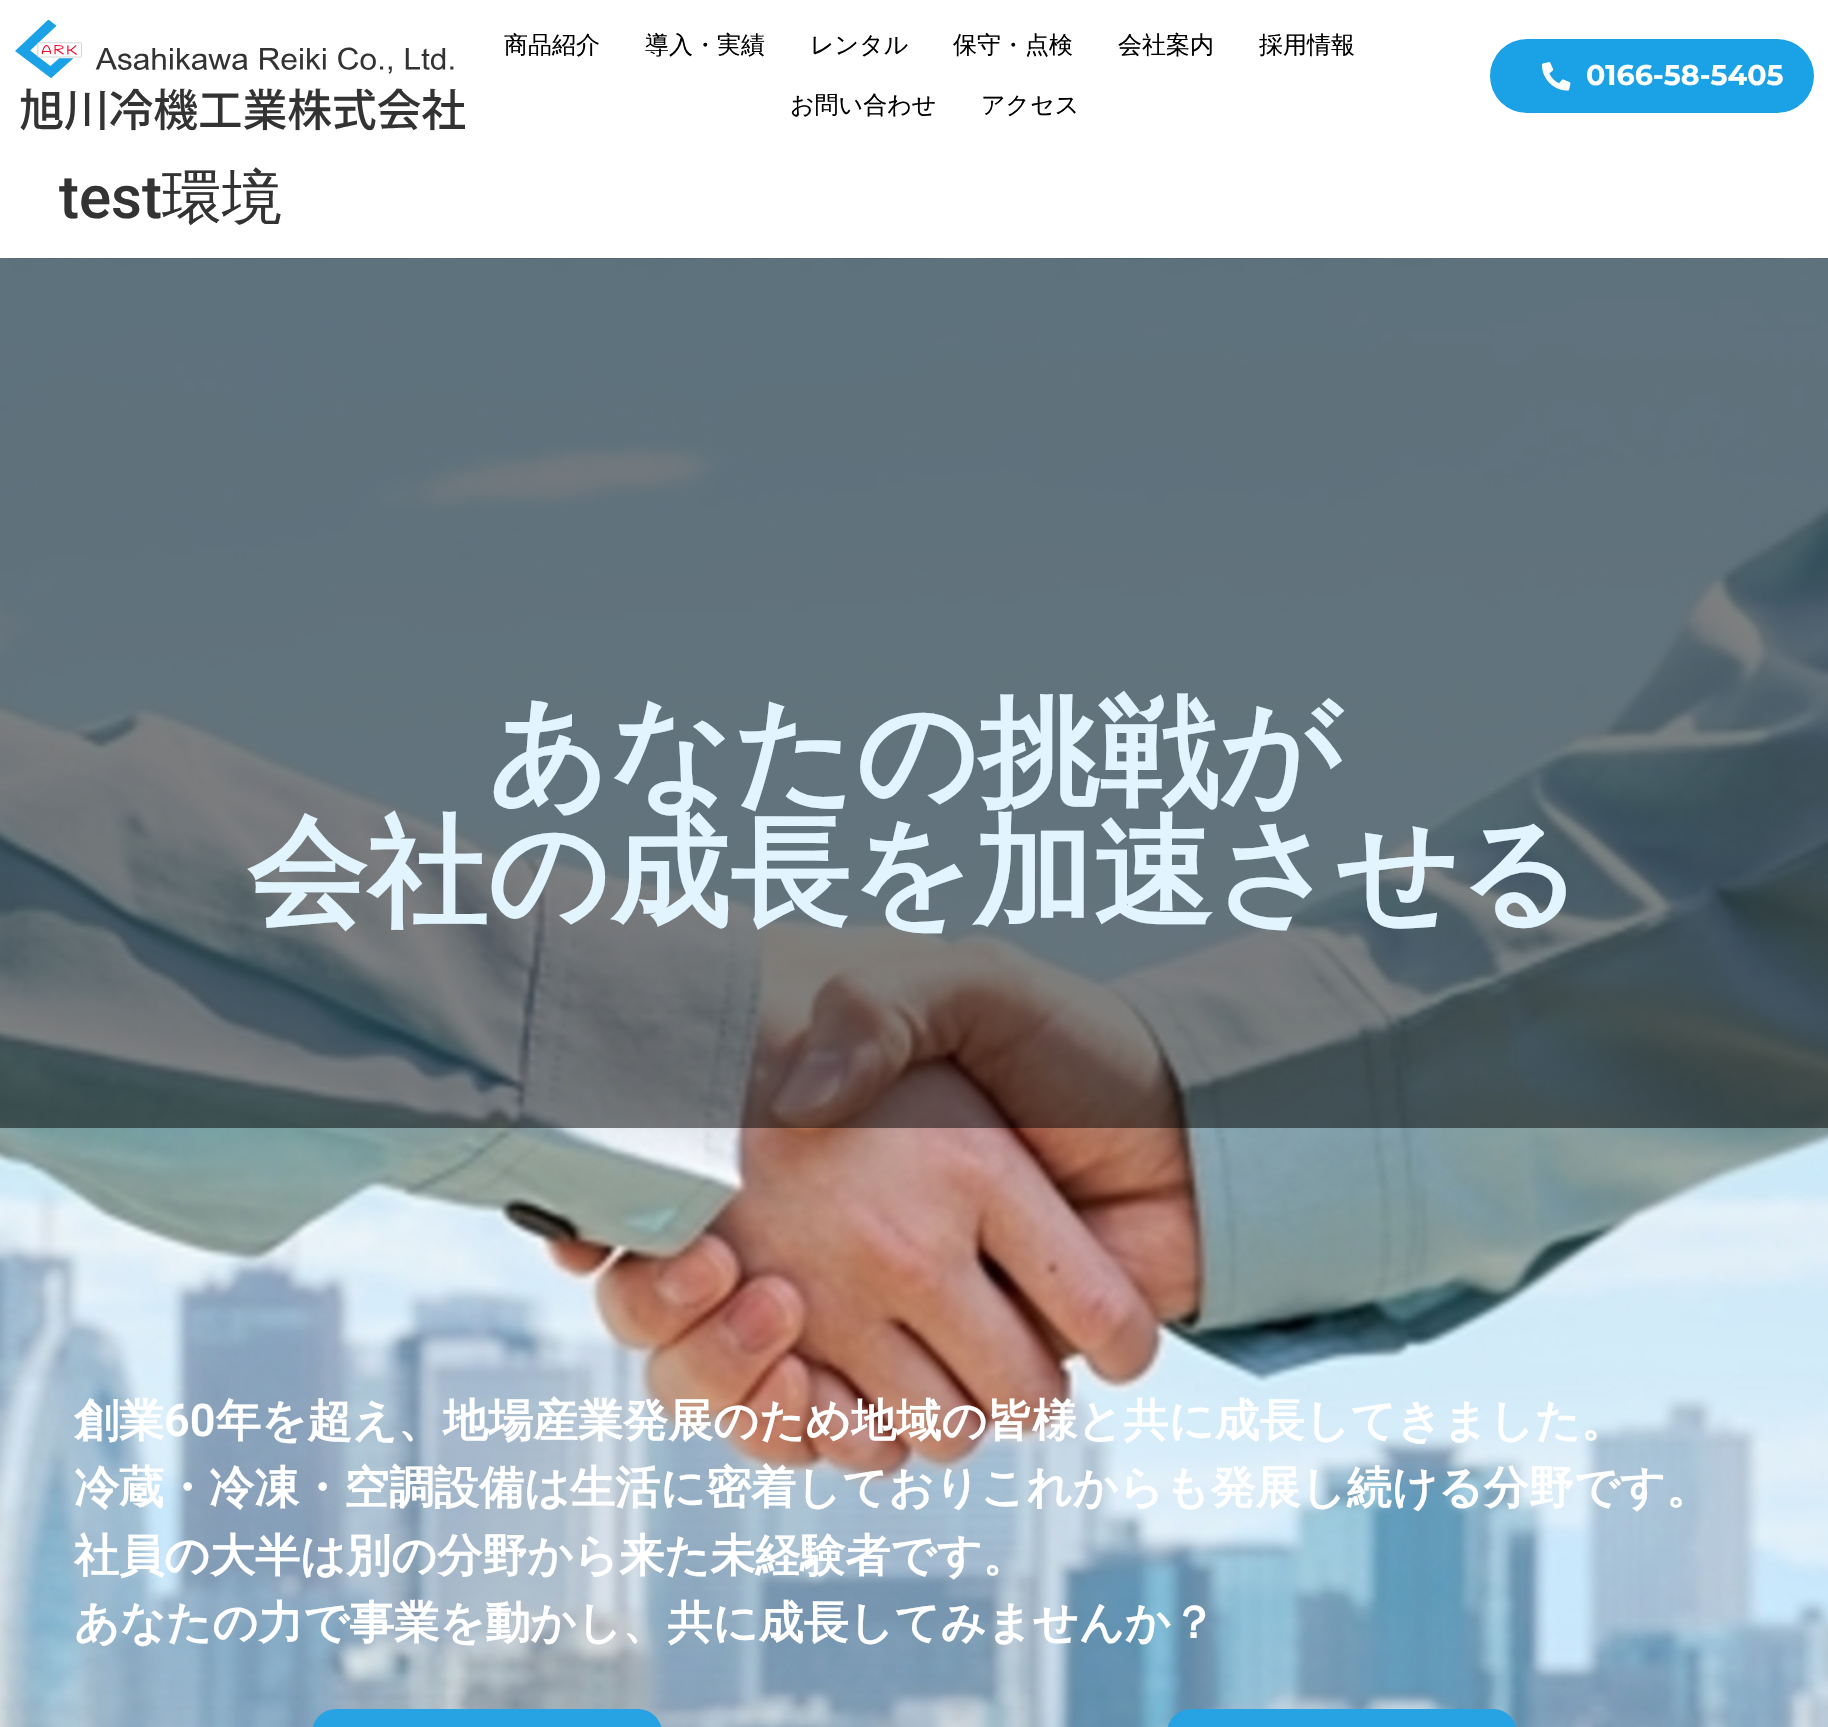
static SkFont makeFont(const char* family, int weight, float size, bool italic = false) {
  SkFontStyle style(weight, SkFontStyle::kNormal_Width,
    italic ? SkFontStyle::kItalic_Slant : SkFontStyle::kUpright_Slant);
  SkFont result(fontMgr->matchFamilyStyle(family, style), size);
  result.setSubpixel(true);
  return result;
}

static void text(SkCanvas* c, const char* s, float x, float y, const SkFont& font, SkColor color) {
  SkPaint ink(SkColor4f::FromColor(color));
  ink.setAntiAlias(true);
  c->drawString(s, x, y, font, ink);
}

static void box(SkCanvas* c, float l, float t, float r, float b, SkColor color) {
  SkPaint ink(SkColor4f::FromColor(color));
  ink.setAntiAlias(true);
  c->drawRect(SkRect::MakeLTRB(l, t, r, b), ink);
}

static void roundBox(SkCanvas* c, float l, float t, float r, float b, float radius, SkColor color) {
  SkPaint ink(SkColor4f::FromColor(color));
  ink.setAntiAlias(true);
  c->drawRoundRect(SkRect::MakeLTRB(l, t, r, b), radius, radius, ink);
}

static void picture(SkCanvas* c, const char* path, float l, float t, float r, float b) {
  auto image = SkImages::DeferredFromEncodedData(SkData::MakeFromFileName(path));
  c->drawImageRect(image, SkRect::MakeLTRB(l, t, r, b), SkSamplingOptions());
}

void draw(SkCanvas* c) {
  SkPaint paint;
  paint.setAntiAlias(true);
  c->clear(0xffffffff);
  picture(c, "img_01.png", 15, 20, 465, 131);
  SkFont face1 = makeFont("WenQuanYi Zen Hei", 500, 24);
  text(c, "商品紹介", 504, 53, face1, 0xff000000);
  text(c, "導入・実績", 645, 53, face1, 0xff000000);
  text(c, "レンタル", 810, 53, face1, 0xff000000);
  text(c, "保守・点検", 953, 53, face1, 0xff000000);
  text(c, "会社案内", 1118, 53, face1, 0xff000000);
  text(c, "採用情報", 1259, 53, face1, 0xff000000);
  text(c, "お問い合わせ", 790, 113, face1, 0xff000000);
  text(c, "アクセス", 981, 113, face1, 0xff000000);
  roundBox(c, 1490, 39, 1814, 113, 37, 0xff1aa1e6);
  picture(c, "img_02.png", 1542, 62, 1571, 91);
  SkFont face2 = makeFont("Montserrat", 700, 28.5f);
  text(c, "0166-58-5405", 1586, 85, face2, 0xffffffff);
  SkFont face3 = makeFont("Roboto", 500, 60);
  text(c, "test", 59, 218, face3, 0xff333333);
  SkFont face4 = makeFont("WenQuanYi Zen Hei", 500, 60);
  text(c, "環境", 162, 218, face4, 0xff333333);
  picture(c, "img_03.png", 0, 258, 1828, 1727);
  box(c, 0, 258, 1828, 1128, 0x80000000);
  SkFont face5 = makeFont("WenQuanYi Zen Hei", 700, 120);
  text(c, "あなたの挑戦が", 487, 794, face5, 0xffe2f5ff);
  text(c, "会社の成長を加速させる", 247, 914, face5, 0xffe2f5ff);
  SkFont face6 = makeFont("WenQuanYi Zen Hei", 700, 45);
  text(c, "創業", 74, 1436, face6, 0xffffffff);
  SkFont face7 = makeFont("Roboto", 600, 45);
  text(c, "60", 164, 1436, face7, 0xffffffff);
  text(c, "年を超え、地場産業発展のため地域の皆様と共に成長してきました。", 216, 1436, face6, 0xffffffff);
  text(c, "冷蔵・冷凍・空調設備は生活に密着しておりこれからも発展し続ける分野です。", 74, 1503, face6, 0xffffffff);
  text(c, "社員の大半は別の分野から来た未経験者です。", 74, 1571, face6, 0xffffffff);
  text(c, "あなたの力で事業を動かし、共に成長してみませんか？", 74, 1638, face6, 0xffffffff);
  roundBox(c, 312, 1709, 662, 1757, 30, 0xff27a2e3);
  roundBox(c, 1167, 1709, 1517, 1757, 30, 0xff27a2e3);
}
